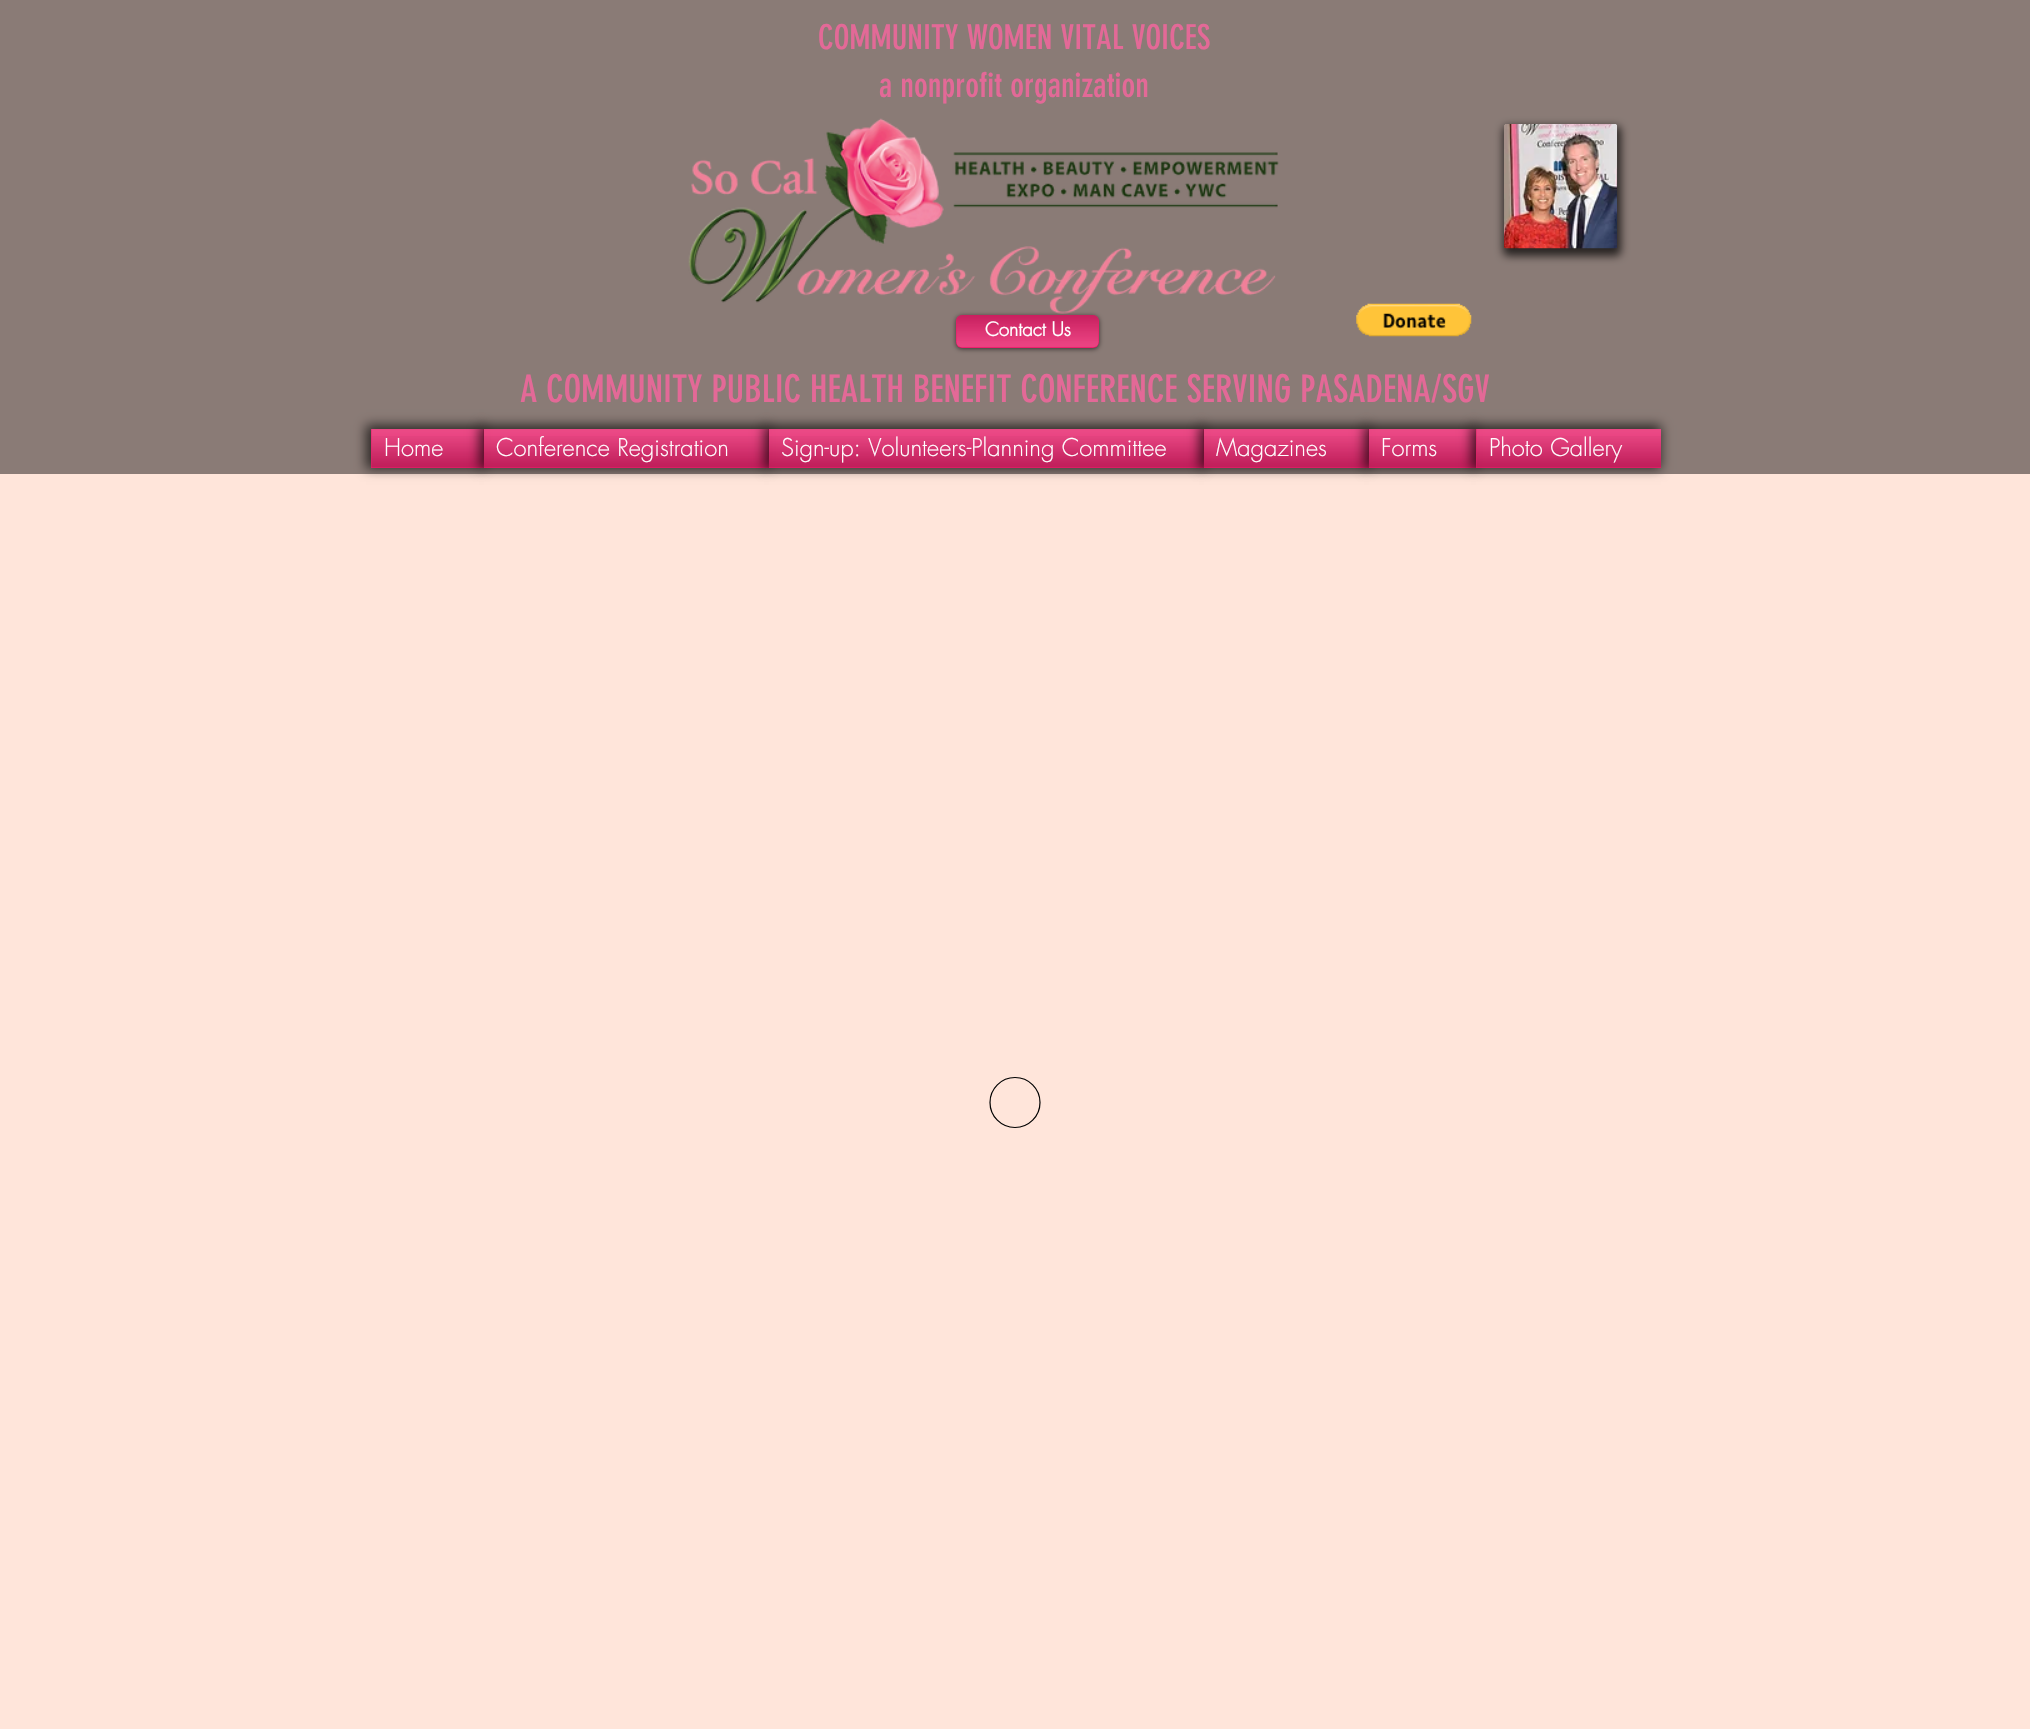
static SkFont makeFont(const char* family, int weight, float size, bool italic = false) {
  SkFontStyle style(weight, SkFontStyle::kNormal_Width,
    italic ? SkFontStyle::kItalic_Slant : SkFontStyle::kUpright_Slant);
  SkFont result(fontMgr->matchFamilyStyle(family, style), size);
  result.setSubpixel(true);
  return result;
}

static void text(SkCanvas* c, const char* s, float x, float y, const SkFont& font, SkColor color) {
  SkPaint ink(SkColor4f::FromColor(color));
  ink.setAntiAlias(true);
  c->drawString(s, x, y, font, ink);
}

static void box(SkCanvas* c, float l, float t, float r, float b, SkColor color) {
  SkPaint ink(SkColor4f::FromColor(color));
  ink.setAntiAlias(true);
  c->drawRect(SkRect::MakeLTRB(l, t, r, b), ink);
}

static void roundBox(SkCanvas* c, float l, float t, float r, float b, float radius, SkColor color) {
  SkPaint ink(SkColor4f::FromColor(color));
  ink.setAntiAlias(true);
  c->drawRoundRect(SkRect::MakeLTRB(l, t, r, b), radius, radius, ink);
}

static void picture(SkCanvas* c, const char* path, float l, float t, float r, float b) {
  auto image = SkImages::DeferredFromEncodedData(SkData::MakeFromFileName(path));
  c->drawImageRect(image, SkRect::MakeLTRB(l, t, r, b), SkSamplingOptions());
}

void draw(SkCanvas* c) {
  SkPaint paint;
  paint.setAntiAlias(true);
  c->clear(0xffffe5da);
  box(c, 0, 0, 2030, 474, 0xff8a7b76);
  SkFont face1 = makeFont("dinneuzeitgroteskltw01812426", 400, 33.75f);
  text(c, "COMMUNITY WOMEN VITAL VOICES", 818, 49, face1, 0xffe36997);
  text(c, "a nonprofit organization", 879, 97, face1, 0xffe36997);
  picture(c, "img_01.png", 688, 118, 1279, 314);
  paint.setColor(0xb3000000);
  paint.setMaskFilter(SkMaskFilter::MakeBlur(kNormal_SkBlurStyle, 4.5f));
  c->drawRoundRect(SkRect::MakeLTRB(1503, 126, 1621, 256), 5, 5, paint);
  paint.setMaskFilter(nullptr);
  picture(c, "img_02.png", 1504, 124, 1618, 249);
  paint.setColor(0x99000000);
  paint.setMaskFilter(SkMaskFilter::MakeBlur(kNormal_SkBlurStyle, 2.5f));
  c->drawRoundRect(SkRect::MakeLTRB(956, 316, 1099, 349), 6, 6, paint);
  paint.setMaskFilter(nullptr);
  roundBox(c, 956, 315, 1099, 348, 6, 0xffed1566);
  picture(c, "img_03.png", 956, 315, 1099, 347);
  picture(c, "img_04.png", 956, 315, 1099, 348);
  SkFont face2 = makeFont("futura", 700, 18.75f);
  text(c, "Contact Us", 985, 336, face2, 0xffffffff);
  picture(c, "img_05.png", 1356, 303, 1472, 337);
  SkFont face3 = makeFont("dinneuzeitgroteskltw01812426", 400, 37.5f);
  text(c, "A COMMUNITY PUBLIC HEALTH BENEFIT CONFERENCE SERVING PASADENA/SGV", 520, 402, face3, 0xffe36997);
  c->save();
  c->clipPath(SkPathBuilder(SkPathFillType::kEvenOdd).moveTo(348, 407).lineTo(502, 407).lineTo(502, 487).lineTo(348, 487).close().moveTo(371, 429).lineTo(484, 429).lineTo(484, 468).lineTo(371, 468).close().detach(), true);
  paint.setColor(0xa8000000);
  paint.setMaskFilter(SkMaskFilter::MakeBlur(kNormal_SkBlurStyle, 5.5f));
  c->drawRect(SkRect::MakeLTRB(366, 425, 484, 469), paint);
  paint.setMaskFilter(nullptr);
  c->restore();
  box(c, 371, 429, 484, 468, 0xeded1566);
  picture(c, "img_06.png", 371, 429, 484, 467);
  picture(c, "img_07.png", 371, 436, 484, 468);
  SkFont face4 = makeFont("futura", 300, 23.75f);
  text(c, "Home", 384, 456, face4, 0xffffffff);
  c->save();
  c->clipPath(SkPathBuilder(SkPathFillType::kEvenOdd).moveTo(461, 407).lineTo(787, 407).lineTo(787, 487).lineTo(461, 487).close().moveTo(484, 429).lineTo(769, 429).lineTo(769, 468).lineTo(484, 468).close().detach(), true);
  paint.setMaskFilter(SkMaskFilter::MakeBlur(kNormal_SkBlurStyle, 5.5f));
  c->drawRect(SkRect::MakeLTRB(479, 425, 769, 469), paint);
  paint.setMaskFilter(nullptr);
  c->restore();
  box(c, 484, 429, 769, 468, 0xeded1566);
  picture(c, "img_08.png", 484, 429, 769, 467);
  picture(c, "img_09.png", 484, 436, 769, 468);
  text(c, "Conference Registration", 496, 456, face4, 0xffffffff);
  c->save();
  c->clipPath(SkPathBuilder(SkPathFillType::kEvenOdd).moveTo(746, 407).lineTo(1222, 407).lineTo(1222, 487).lineTo(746, 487).close().moveTo(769, 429).lineTo(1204, 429).lineTo(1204, 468).lineTo(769, 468).close().detach(), true);
  paint.setMaskFilter(SkMaskFilter::MakeBlur(kNormal_SkBlurStyle, 5.5f));
  c->drawRect(SkRect::MakeLTRB(764, 425, 1204, 469), paint);
  paint.setMaskFilter(nullptr);
  c->restore();
  box(c, 769, 429, 1204, 468, 0xeded1566);
  picture(c, "img_10.png", 769, 429, 1204, 467);
  picture(c, "img_11.png", 769, 436, 1204, 468);
  text(c, "Sign-up: Volunteers-Planning Committee", 781, 456, face4, 0xffffffff);
  c->save();
  c->clipPath(SkPathBuilder(SkPathFillType::kEvenOdd).moveTo(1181, 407).lineTo(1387, 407).lineTo(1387, 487).lineTo(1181, 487).close().moveTo(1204, 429).lineTo(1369, 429).lineTo(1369, 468).lineTo(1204, 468).close().detach(), true);
  paint.setMaskFilter(SkMaskFilter::MakeBlur(kNormal_SkBlurStyle, 5.5f));
  c->drawRect(SkRect::MakeLTRB(1199, 425, 1369, 469), paint);
  paint.setMaskFilter(nullptr);
  c->restore();
  box(c, 1204, 429, 1369, 468, 0xeded1566);
  picture(c, "img_12.png", 1204, 429, 1369, 467);
  picture(c, "img_13.png", 1204, 436, 1369, 468);
  text(c, "Magazines", 1216, 456, face4, 0xffffffff);
  c->save();
  c->clipPath(SkPathBuilder(SkPathFillType::kEvenOdd).moveTo(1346, 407).lineTo(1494, 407).lineTo(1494, 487).lineTo(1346, 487).close().moveTo(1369, 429).lineTo(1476, 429).lineTo(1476, 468).lineTo(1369, 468).close().detach(), true);
  paint.setMaskFilter(SkMaskFilter::MakeBlur(kNormal_SkBlurStyle, 5.5f));
  c->drawRect(SkRect::MakeLTRB(1364, 425, 1476, 469), paint);
  paint.setMaskFilter(nullptr);
  c->restore();
  box(c, 1369, 429, 1476, 468, 0xeded1566);
  picture(c, "img_14.png", 1369, 429, 1476, 467);
  picture(c, "img_15.png", 1369, 436, 1476, 468);
  text(c, "Forms", 1381, 456, face4, 0xffffffff);
  c->save();
  c->clipPath(SkPathBuilder(SkPathFillType::kEvenOdd).moveTo(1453, 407).lineTo(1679, 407).lineTo(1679, 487).lineTo(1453, 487).close().moveTo(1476, 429).lineTo(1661, 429).lineTo(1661, 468).lineTo(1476, 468).close().detach(), true);
  paint.setMaskFilter(SkMaskFilter::MakeBlur(kNormal_SkBlurStyle, 5.5f));
  c->drawRect(SkRect::MakeLTRB(1471, 425, 1661, 469), paint);
  paint.setMaskFilter(nullptr);
  c->restore();
  box(c, 1476, 429, 1661, 468, 0xeded1566);
  picture(c, "img_16.png", 1476, 429, 1661, 467);
  picture(c, "img_17.png", 1476, 436, 1661, 468);
  text(c, "Photo Gallery", 1489, 456, face4, 0xffffffff);
  paint.setStyle(SkPaint::kStroke_Style);
  paint.setStrokeWidth(1.2f);
  paint.setColor(0xff000000);
  c->drawCircle(1015, 1102.5f, 25, paint);
}
